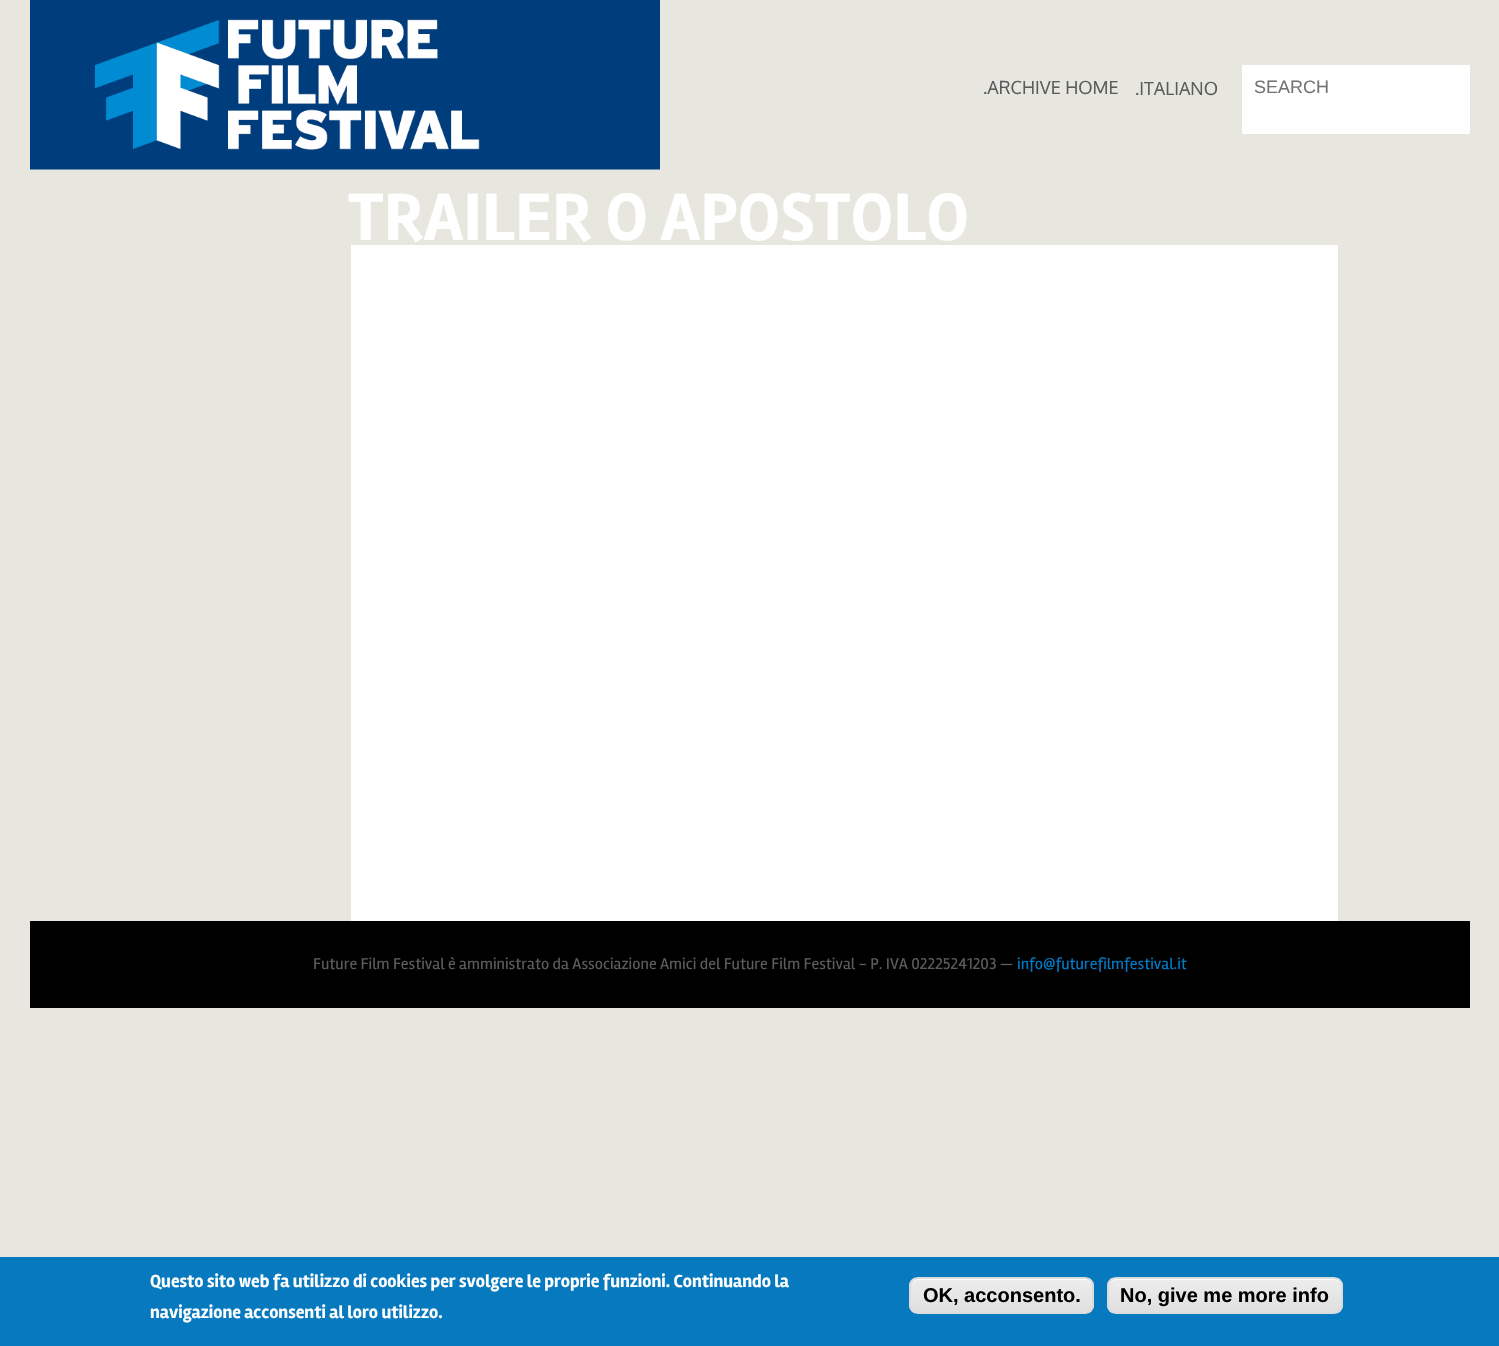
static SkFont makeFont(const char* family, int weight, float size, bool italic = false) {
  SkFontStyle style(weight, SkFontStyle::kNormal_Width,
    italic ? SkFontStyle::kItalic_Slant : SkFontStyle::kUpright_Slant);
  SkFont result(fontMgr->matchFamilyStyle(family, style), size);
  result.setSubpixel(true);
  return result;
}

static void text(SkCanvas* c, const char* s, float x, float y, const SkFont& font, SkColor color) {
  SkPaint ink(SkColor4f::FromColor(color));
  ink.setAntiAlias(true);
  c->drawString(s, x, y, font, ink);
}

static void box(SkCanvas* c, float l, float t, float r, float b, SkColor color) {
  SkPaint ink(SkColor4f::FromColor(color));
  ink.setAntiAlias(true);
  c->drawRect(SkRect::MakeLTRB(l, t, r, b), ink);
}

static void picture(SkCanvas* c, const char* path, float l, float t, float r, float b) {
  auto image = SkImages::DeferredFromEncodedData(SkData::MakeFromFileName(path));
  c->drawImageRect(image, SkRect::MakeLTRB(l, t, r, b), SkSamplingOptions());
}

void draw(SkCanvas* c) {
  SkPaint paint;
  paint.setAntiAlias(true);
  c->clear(0xffe8e7df);
  picture(c, "img_01.png", 30, 0, 660, 170);
  SkFont face1 = makeFont("Oxygen", 400, 18);
  text(c, ".ARCHIVE HOME", 983, 94, face1, 0xff5a5b5d);
  text(c, ".ITALIANO", 1135, 95, face1, 0xff5a5b5d);
  box(c, 1242, 65, 1470, 134, 0xffffffff);
  SkFont face2 = makeFont("Liberation Sans", 400, 18);
  text(c, "SEARCH", 1254, 93, face2, 0xff757575);
  box(c, 351, 245, 1338, 921, 0xffffffff);
  SkFont face3 = makeFont("Rambla", 700, 69.25f);
  text(c, "TRAILER O APOSTOLO", 348, 240, face3, 0xffffffff);
  box(c, 30, 921, 1470, 1008, 0xff000000);
  SkFont face4 = makeFont("Rambla", 400, 16.2f);
  text(c, "Future Film Festival è amministrato da Associazione Amici del Future Film Festival - P. IVA 02225241203 —", 313, 969, face4, 0xff5a5b5d);
  text(c, "info@futurefilmfestival.it", 1017, 969, face4, 0xff0079c7);
  box(c, 0, 1257, 1499, 1346, 0xff0779bf);
  SkFont face5 = makeFont("Rambla", 700, 18);
  text(c, "Questo sito web fa utilizzo di cookies per svolgere le proprie funzioni. Continuando la", 150, 1287, face5, 0xffffffff);
  text(c, "navigazione acconsenti al loro utilizzo.", 150, 1318, face5, 0xffffffff);
  c->save();
  c->clipPath(SkPathBuilder().moveTo(918, 1277).lineTo(1085, 1277).cubicTo(1090, 1277, 1094, 1281, 1094, 1286).lineTo(1094, 1305).cubicTo(1094, 1310, 1090, 1314, 1085, 1314).lineTo(918, 1314).cubicTo(913, 1314, 909, 1310, 909, 1305).lineTo(909, 1286).cubicTo(909, 1281, 913, 1277, 918, 1277).close().detach(), true);
  {
    const SkColor colors[] = {0xffededed, 0xffdfdfdf};
    const float stops[] = {0.05f, 1};
    const SkPoint ends[] = {{1001, 1278}, {1001, 1313}};
    paint.setShader(SkGradientShader::MakeLinear(ends, colors, stops, 2, SkTileMode::kClamp));
    paint.setAlpha(255);
  }
  c->drawRect(SkRect::MakeLTRB(909, 1278, 1094, 1313), paint);
  c->restore();
  paint.setShader(nullptr);
  paint.setColor(0xffffffff);
  c->drawPath(SkPathBuilder().moveTo(918, 1280).lineTo(1084, 1280).cubicTo(1089, 1280, 1092, 1283, 1092, 1287).lineTo(1092, 1286).cubicTo(1092, 1282, 1088, 1278, 1084, 1278).lineTo(919, 1278).cubicTo(916, 1278, 913, 1280, 912, 1283).cubicTo(913, 1281, 916, 1280, 918, 1280).close().detach(), paint);
  paint.setStyle(SkPaint::kStroke_Style);
  paint.setStrokeWidth(2);
  paint.setColor(0xffdcdcdc);
  c->drawRoundRect(SkRect::MakeLTRB(910, 1278, 1093, 1313), 8, 8, paint);
  SkFont face6 = makeFont("Liberation Sans", 700, 20);
  text(c, "OK, acconsento.", 923, 1302, face6, 0xff000000);
  c->save();
  c->clipPath(SkPathBuilder().moveTo(1116, 1277).lineTo(1334, 1277).cubicTo(1339, 1277, 1343, 1281, 1343, 1286).lineTo(1343, 1305).cubicTo(1343, 1310, 1339, 1314, 1334, 1314).lineTo(1116, 1314).cubicTo(1111, 1314, 1107, 1310, 1107, 1305).lineTo(1107, 1286).cubicTo(1107, 1281, 1111, 1277, 1116, 1277).close().detach(), true);
  paint.setStyle(SkPaint::kFill_Style);
  {
    const SkColor colors[] = {0xffededed, 0xffdfdfdf};
    const float stops[] = {0.05f, 1};
    const SkPoint ends[] = {{1225, 1278}, {1225, 1313}};
    paint.setShader(SkGradientShader::MakeLinear(ends, colors, stops, 2, SkTileMode::kClamp));
    paint.setAlpha(255);
  }
  c->drawRect(SkRect::MakeLTRB(1107, 1278, 1343, 1313), paint);
  c->restore();
  paint.setShader(nullptr);
  paint.setColor(0xffffffff);
  c->drawPath(SkPathBuilder().moveTo(1116, 1280).lineTo(1334, 1280).cubicTo(1338, 1280, 1341, 1283, 1341, 1287).lineTo(1341, 1286).cubicTo(1341, 1282, 1337, 1278, 1333, 1278).lineTo(1117, 1278).cubicTo(1114, 1278, 1111, 1280, 1110, 1283).cubicTo(1111, 1281, 1114, 1280, 1116, 1280).close().detach(), paint);
  paint.setStyle(SkPaint::kStroke_Style);
  paint.setColor(0xffdcdcdc);
  c->drawRoundRect(SkRect::MakeLTRB(1108, 1278, 1342, 1313), 8, 8, paint);
  text(c, "No, give me more info", 1120, 1302, face6, 0xff000000);
}
